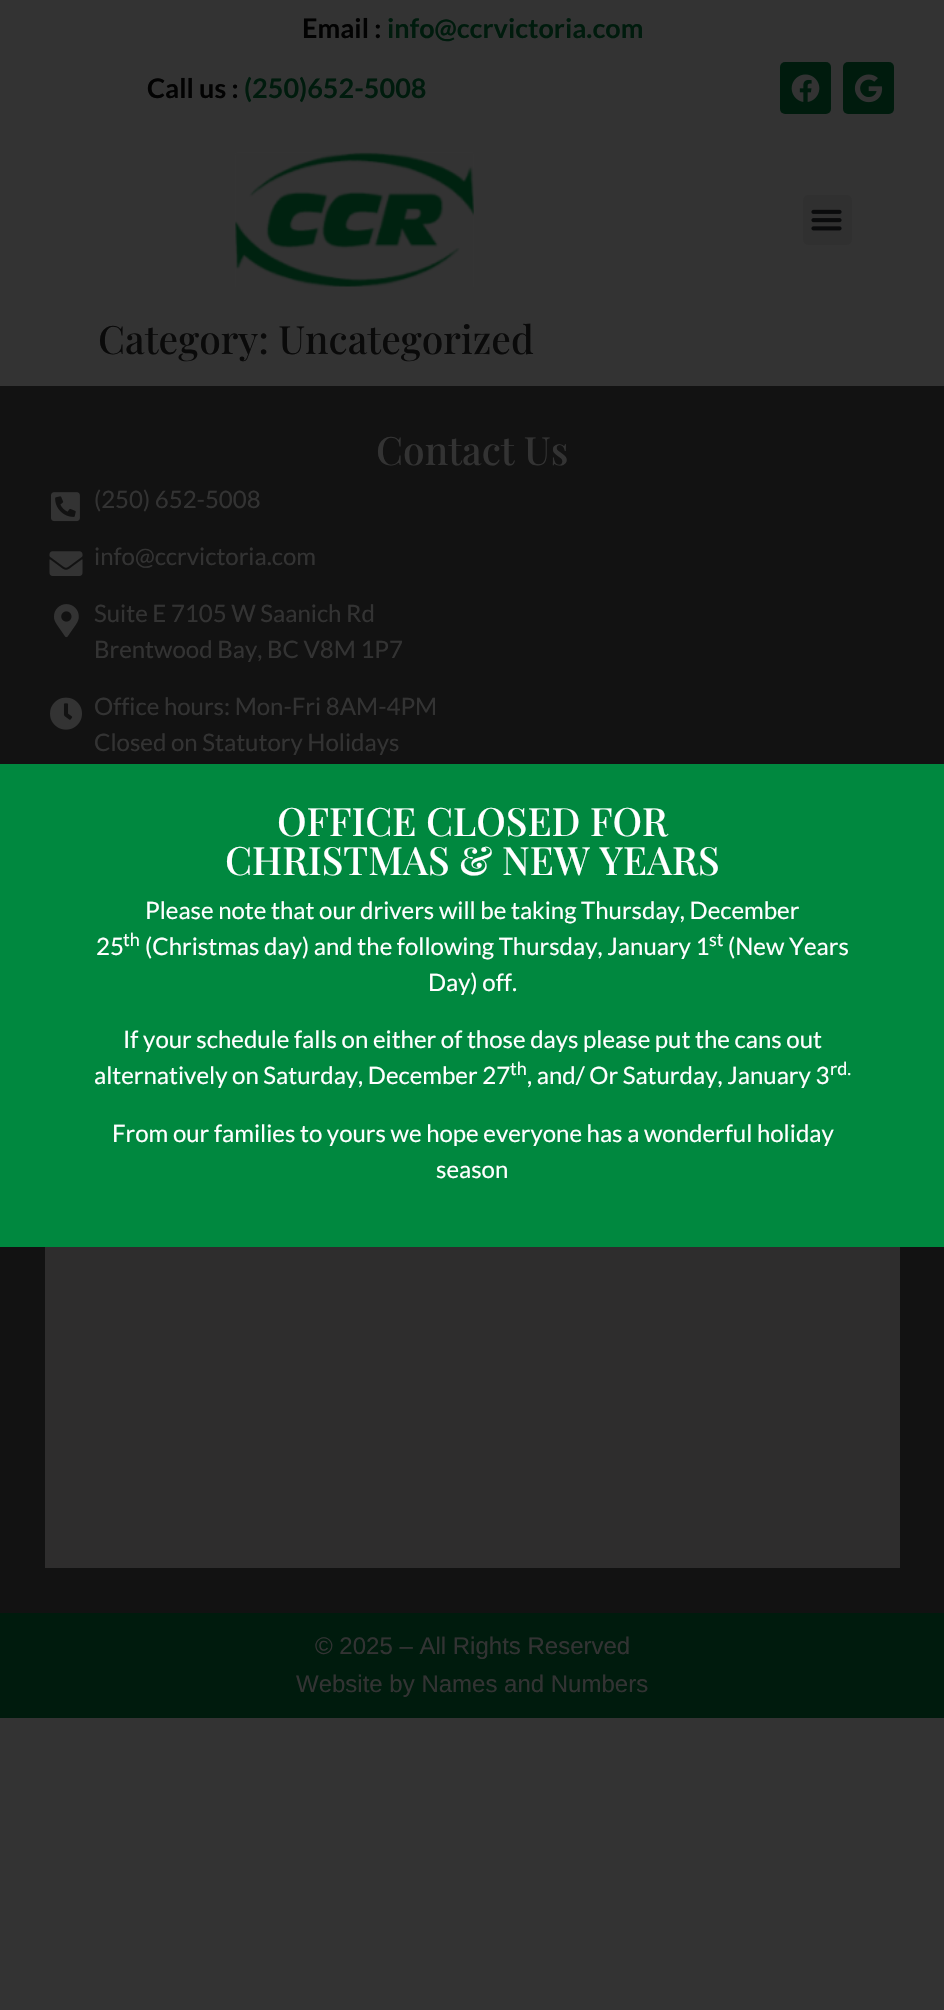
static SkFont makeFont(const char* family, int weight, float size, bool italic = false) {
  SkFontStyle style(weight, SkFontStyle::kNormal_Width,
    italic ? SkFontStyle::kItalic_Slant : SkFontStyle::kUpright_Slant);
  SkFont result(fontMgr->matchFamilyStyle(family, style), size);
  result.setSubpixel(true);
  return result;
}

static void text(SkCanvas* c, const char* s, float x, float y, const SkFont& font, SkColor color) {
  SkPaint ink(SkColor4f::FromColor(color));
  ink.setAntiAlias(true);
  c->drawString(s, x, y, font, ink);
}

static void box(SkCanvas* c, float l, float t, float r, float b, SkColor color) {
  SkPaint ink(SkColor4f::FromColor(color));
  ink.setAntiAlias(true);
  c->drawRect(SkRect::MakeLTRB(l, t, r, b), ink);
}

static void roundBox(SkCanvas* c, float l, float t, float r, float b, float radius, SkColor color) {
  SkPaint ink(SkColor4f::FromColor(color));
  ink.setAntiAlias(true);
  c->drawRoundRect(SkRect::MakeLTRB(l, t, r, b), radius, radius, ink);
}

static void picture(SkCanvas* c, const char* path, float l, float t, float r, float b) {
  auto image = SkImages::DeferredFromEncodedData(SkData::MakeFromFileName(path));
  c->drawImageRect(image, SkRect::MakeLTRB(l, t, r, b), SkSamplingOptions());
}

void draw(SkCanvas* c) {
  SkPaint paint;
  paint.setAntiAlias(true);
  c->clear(0xff333333);
  SkFont face1 = makeFont("Lato", 700, 27);
  text(c, "Email :", 302, 38, face1, 0xff020202);
  text(c, "info@ccrvictoria.com", 387, 38, face1, 0xff001b0d);
  text(c, "Call us :", 147, 98, face1, 0xff020202);
  text(c, "(250)652-5008", 244, 98, face1, 0xff001b0d);
  roundBox(c, 780, 62, 831, 114, 5, 0xff001b0d);
  picture(c, "img_01.png", 791, 74, 820, 102);
  roundBox(c, 843, 62, 894, 114, 5, 0xff001b0d);
  picture(c, "img_02.png", 854, 74, 883, 103);
  picture(c, "img_03.png", 235, 152, 474, 287);
  roundBox(c, 803, 195, 852, 245, 5, 0xff303030);
  picture(c, "img_04.png", 811, 209, 842, 231);
  SkFont face2 = makeFont("Playfair Display", 500, 39);
  text(c, "Category: Uncategorized", 98, 354, face2, 0xff0a0a0a);
  box(c, 0, 386, 944, 1613, 0xff121212);
  text(c, "Contact Us", 376, 465, face2, 0xff333333);
  picture(c, "img_05.png", 51, 492, 80, 522);
  SkFont face3 = makeFont("Lato", 400, 24);
  text(c, "(250) 652-5008", 94, 508, face3, 0xff333333);
  picture(c, "img_06.png", 49, 551, 83, 576);
  text(c, "info@ccrvictoria.com", 94, 565, face3, 0xff333333);
  picture(c, "img_07.png", 54, 604, 79, 638);
  text(c, "Suite E 7105 W Saanich Rd", 94, 622, face3, 0xff333333);
  text(c, "Brentwood Bay, BC V8M 1P7", 94, 658, face3, 0xff333333);
  picture(c, "img_08.png", 50, 697, 82, 730);
  text(c, "Office hours: Mon-Fri 8AM-4PM", 94, 715, face3, 0xff333333);
  text(c, "Closed on Statutory Holidays", 94, 751, face3, 0xff333333);
  box(c, 45, 1247, 900, 1568, 0xff2e2d2d);
  box(c, 0, 1613, 944, 1718, 0xff001b0d);
  SkFont face4 = makeFont("Liberation Sans", 400, 24);
  text(c, "© 2025 – All Rights Reserved", 315, 1654, face4, 0xff333333);
  text(c, "Website by Names and Numbers", 296, 1692, face4, 0xff333333);
  box(c, 0, 764, 944, 1247, 0xff00883f);
  text(c, "OFFICE CLOSED FOR", 277, 836, face2, 0xffffffff);
  text(c, "CHRISTMAS & NEW YEARS", 225, 875, face2, 0xffffffff);
  text(c, "Please note that our drivers will be taking Thursday, December", 145, 919, face3, 0xffffffff);
  text(c, "25", 96, 955, face3, 0xffffffff);
  SkFont face5 = makeFont("Lato", 400, 18);
  text(c, "th", 123, 946, face5, 0xffffffff);
  text(c, "(Christmas day) and the following Thursday, January 1", 145, 955, face3, 0xffffffff);
  text(c, "st", 709, 946, face5, 0xffffffff);
  text(c, "(New Years", 728, 955, face3, 0xffffffff);
  text(c, "Day) off.", 428, 991, face3, 0xffffffff);
  text(c, "If your schedule falls on either of those days please put the cans out", 123, 1048, face3, 0xffffffff);
  text(c, "alternatively on Saturday, December 27", 94, 1084, face3, 0xffffffff);
  text(c, "th", 510, 1075, face5, 0xffffffff);
  text(c, ", and/ Or Saturday, January 3", 527, 1084, face3, 0xffffffff);
  text(c, "rd.", 830, 1075, face5, 0xffffffff);
  text(c, "From our families to yours we hope everyone has a wonderful holiday", 112, 1142, face3, 0xffffffff);
  text(c, "season", 436, 1178, face3, 0xffffffff);
}
